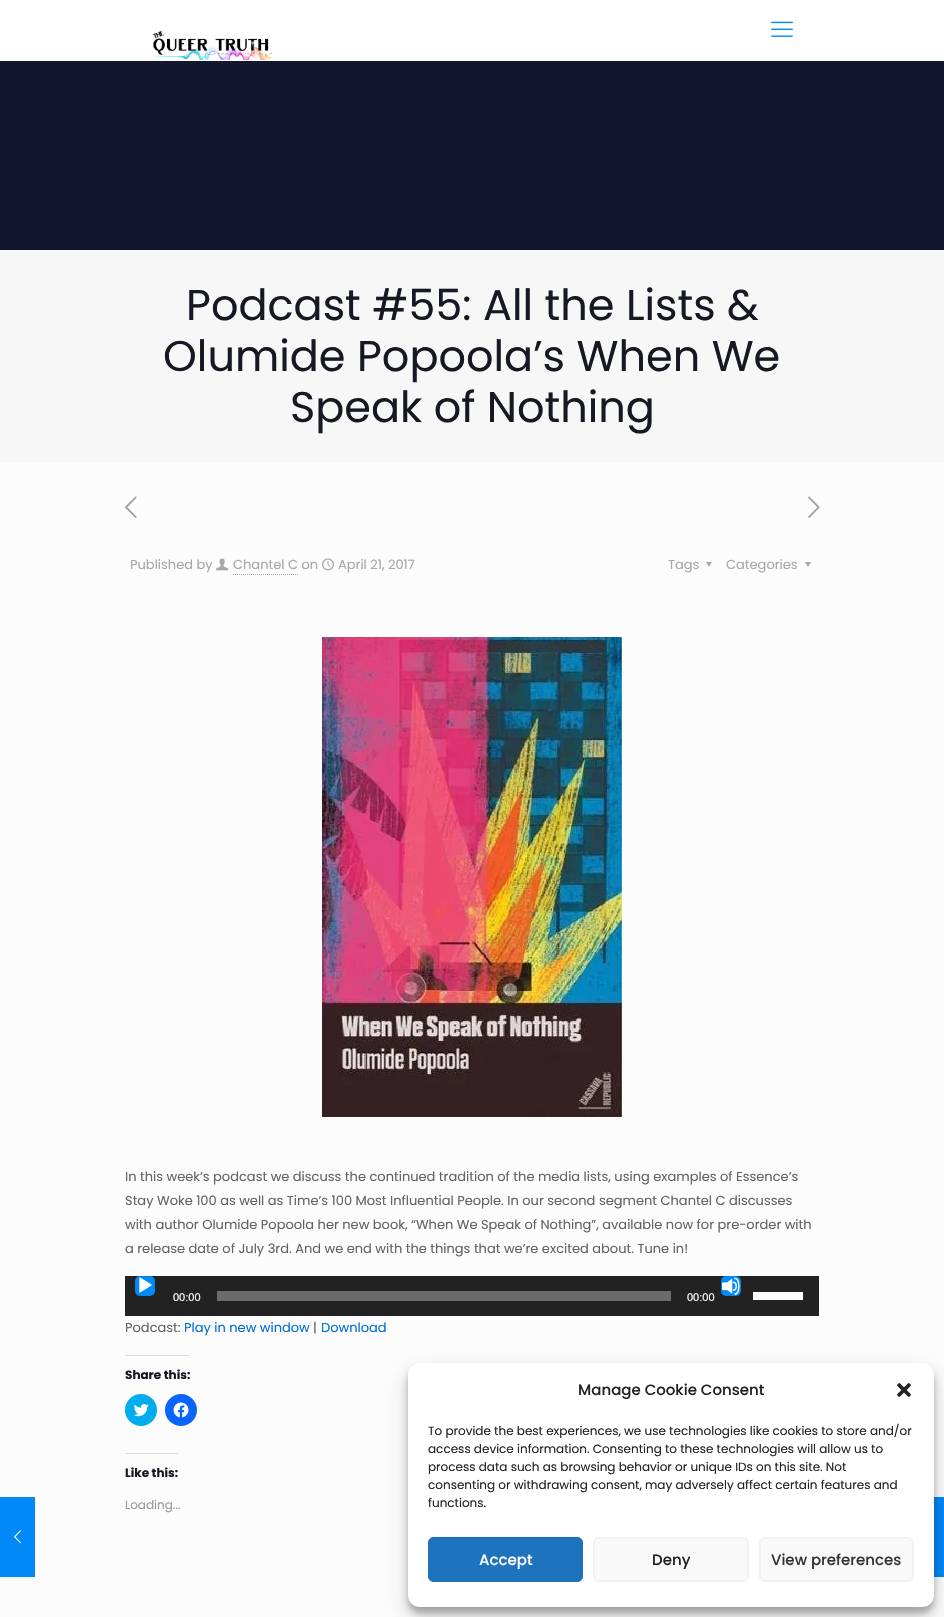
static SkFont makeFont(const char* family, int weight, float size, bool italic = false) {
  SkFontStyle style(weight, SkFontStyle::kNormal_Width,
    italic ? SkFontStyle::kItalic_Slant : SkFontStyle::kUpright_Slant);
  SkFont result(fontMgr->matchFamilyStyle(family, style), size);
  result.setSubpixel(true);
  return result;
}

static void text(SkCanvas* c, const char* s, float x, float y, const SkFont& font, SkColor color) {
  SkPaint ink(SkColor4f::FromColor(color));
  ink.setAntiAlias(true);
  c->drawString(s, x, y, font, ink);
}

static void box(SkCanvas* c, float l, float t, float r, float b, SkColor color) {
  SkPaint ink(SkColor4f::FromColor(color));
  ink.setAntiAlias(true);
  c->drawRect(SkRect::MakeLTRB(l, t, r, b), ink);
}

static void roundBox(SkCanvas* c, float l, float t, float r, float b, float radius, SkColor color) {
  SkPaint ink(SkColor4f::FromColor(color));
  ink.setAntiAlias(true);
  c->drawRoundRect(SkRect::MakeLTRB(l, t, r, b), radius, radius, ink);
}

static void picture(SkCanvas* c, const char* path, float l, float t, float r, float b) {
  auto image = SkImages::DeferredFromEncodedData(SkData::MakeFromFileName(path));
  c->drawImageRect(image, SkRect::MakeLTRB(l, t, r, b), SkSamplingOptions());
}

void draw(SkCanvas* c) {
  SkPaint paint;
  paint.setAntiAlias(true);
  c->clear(0xfffcfcfc);
  box(c, 0, 61, 944, 250, 0xff13162f);
  box(c, 0, 0, 944, 61, 0xffffffff);
  picture(c, "img_01.png", 152, 30, 274, 60);
  picture(c, "img_02.png", 771, 21, 793, 37);
  box(c, 0, 250, 944, 463, 0xfff7f7f7);
  SkFont face1 = makeFont("Poppins", 400, 43);
  text(c, "Podcast #55: All the Lists &", 186, 320, face1, 0xff161922);
  text(c, "Olumide Popoola’s When We", 163, 371, face1, 0xff161922);
  text(c, "Speak of Nothing", 290, 422, face1, 0xff161922);
  picture(c, "img_03.png", 125, 496, 137, 518);
  picture(c, "img_04.png", 808, 496, 820, 518);
  SkFont face2 = makeFont("Poppins", 400, 13);
  text(c, "Published by", 130, 569, face2, 0xffa8a8a8);
  picture(c, "img_05.png", 216, 558, 229, 571);
  text(c, "Chantel C on", 233, 569, face2, 0xffa8a8a8);
  paint.setStyle(SkPaint::kStroke_Style);
  paint.setStrokeWidth(1);
  paint.setColor(0xffa8a8a8);
  paint.setPathEffect(SkDashPathEffect::Make({{1, 1}}, 0));
  c->drawPath(SkPathBuilder().moveTo(233, 574.5f).lineTo(298, 574.5f).detach(), paint);
  paint.setPathEffect(nullptr);
  picture(c, "img_06.png", 322, 558, 334, 571);
  text(c, "April 21, 2017", 338, 569, face2, 0xffa8a8a8);
  text(c, "Tags", 668, 569, face2, 0xffa8a8a8);
  paint.setStyle(SkPaint::kFill_Style);
  c->drawPath(SkPathBuilder().moveTo(712, 562).lineTo(709, 567).lineTo(706, 562).close().detach(), paint);
  text(c, "Categories", 726, 569, face2, 0xffa8a8a8);
  c->drawPath(SkPathBuilder().moveTo(811, 562).lineTo(808, 567).lineTo(805, 562).close().detach(), paint);
  picture(c, "img_07.png", 322, 637, 622, 1117);
  text(c, "In this week’s podcast we discuss the continued tradition of the media lists, using examples of Essence’s", 125, 1181, face2, 0xff626262);
  text(c, "Stay Woke 100 as well as Time’s 100 Most Influential People. In our second segment Chantel C discusses", 125, 1205, face2, 0xff626262);
  text(c, "with author Olumide Popoola her new book, “When We Speak of Nothing”, available now for pre-order with", 125, 1229, face2, 0xff626262);
  text(c, "a release date of July 3rd. And we end with the things that we’re excited about. Tune in!", 125, 1253, face2, 0xff626262);
  box(c, 125, 1276, 819, 1316, 0xff222222);
  roundBox(c, 135, 1276, 155, 1296, 5, 0xff0089f7);
  picture(c, "img_08.png", 139, 1277, 152, 1293);
  paint.setStyle(SkPaint::kStroke_Style);
  paint.setColor(0x08000000);
  c->drawRect(SkRect::MakeLTRB(135.5f, 1276.5f, 154.5f, 1295.5f), paint);
  SkFont face3 = makeFont("Liberation Sans", 400, 11);
  text(c, "00:00", 173, 1301, face3, 0xffffffff);
  box(c, 217, 1291, 671, 1301, 0xff6b6b6b);
  text(c, "00:00", 687, 1301, face3, 0xffffffff);
  roundBox(c, 721, 1276, 741, 1296, 5, 0xff0089f7);
  picture(c, "img_09.png", 722, 1277, 740, 1295);
  c->drawRect(SkRect::MakeLTRB(721.5f, 1276.5f, 740.5f, 1295.5f), paint);
  box(c, 753, 1292, 803, 1300, 0xffffffff);
  text(c, "Podcast:", 125, 1332, face2, 0xff626262);
  text(c, "Play in new window", 184, 1332, face2, 0xff006edf);
  text(c, "|", 313, 1332, face2, 0xff626262);
  text(c, "Download", 321, 1332, face2, 0xff006edf);
  box(c, 125, 1355, 190, 1356, 0xffdcdcde);
  SkFont face4 = makeFont("Poppins", 700, 12);
  text(c, "Share this:", 125, 1379, face4, 0xff161922);
  paint.setStyle(SkPaint::kFill_Style);
  paint.setColor(0xff00acee);
  c->drawCircle(141, 1410, 16, paint);
  picture(c, "img_10.png", 133, 1404, 149, 1417);
  paint.setColor(0xff0866ff);
  c->drawCircle(181, 1410, 16, paint);
  picture(c, "img_11.png", 173, 1402, 189, 1418);
  box(c, 125, 1453, 178, 1454, 0xffdcdcde);
  text(c, "Like this:", 125, 1477, face4, 0xff161922);
  SkFont face5 = makeFont("Poppins", 400, 12);
  text(c, "Loading...", 125, 1509, face5, 0xff999999);
  box(c, 0, 1497, 35, 1577, 0xff0089f7);
  picture(c, "img_12.png", 14, 1530, 21, 1544);
  box(c, 934, 1497, 944, 1577, 0xff0089f7);
  paint.setColor(0x3b000000);
  paint.setMaskFilter(SkMaskFilter::MakeBlur(kNormal_SkBlurStyle, 3));
  c->drawRoundRect(SkRect::MakeLTRB(408, 1369, 934, 1613), 12, 12, paint);
  paint.setMaskFilter(nullptr);
  paint.setColor(0x30000000);
  paint.setMaskFilter(SkMaskFilter::MakeBlur(kNormal_SkBlurStyle, 10));
  c->drawRoundRect(SkRect::MakeLTRB(408, 1373, 934, 1617), 12, 12, paint);
  paint.setMaskFilter(nullptr);
  roundBox(c, 408, 1363, 934, 1607, 12, 0xffffffff);
  SkFont face6 = makeFont("Poppins", 500, 15);
  text(c, "Manage Cookie Consent", 578, 1395, face6, 0xff222222);
  picture(c, "img_13.png", 897, 1383, 911, 1397);
  text(c, "To provide the best experiences, we use technologies like cookies to store and/or", 428, 1435, face5, 0xff222222);
  text(c, "access device information. Consenting to these technologies will allow us to", 428, 1453, face5, 0xff222222);
  text(c, "process data such as browsing behavior or unique IDs on this site. Not", 428, 1471, face5, 0xff222222);
  text(c, "consenting or withdrawing consent, may adversely affect certain features and", 428, 1489, face5, 0xff222222);
  text(c, "functions.", 428, 1507, face5, 0xff222222);
  roundBox(c, 428, 1537, 583, 1582, 6, 0xff1e73be);
  paint.setStyle(SkPaint::kStroke_Style);
  paint.setColor(0xff1d70b8);
  c->drawRoundRect(SkRect::MakeLTRB(429.5f, 1538.5f, 581.5f, 1580.5f), 4.5f, 4.5f, paint);
  paint.setColor(0xff1e73be);
  c->drawRoundRect(SkRect::MakeLTRB(428.5f, 1537.5f, 582.5f, 1581.5f), 5.5f, 5.5f, paint);
  text(c, "Accept", 479, 1565, face6, 0xffffffff);
  roundBox(c, 593, 1537, 749, 1582, 6, 0xfff9f9f9);
  paint.setColor(0xfff2f2f2);
  c->drawRoundRect(SkRect::MakeLTRB(594.5f, 1538.5f, 747.5f, 1580.5f), 4.5f, 4.5f, paint);
  c->drawRoundRect(SkRect::MakeLTRB(593.5f, 1537.5f, 748.5f, 1581.5f), 5.5f, 5.5f, paint);
  text(c, "Deny", 652, 1565, face6, 0xff222222);
  roundBox(c, 759, 1537, 914, 1582, 6, 0xfff9f9f9);
  c->drawRoundRect(SkRect::MakeLTRB(760.5f, 1538.5f, 912.5f, 1580.5f), 4.5f, 4.5f, paint);
  c->drawRoundRect(SkRect::MakeLTRB(759.5f, 1537.5f, 913.5f, 1581.5f), 5.5f, 5.5f, paint);
  text(c, "View preferences", 771, 1565, face6, 0xff333333);
}
